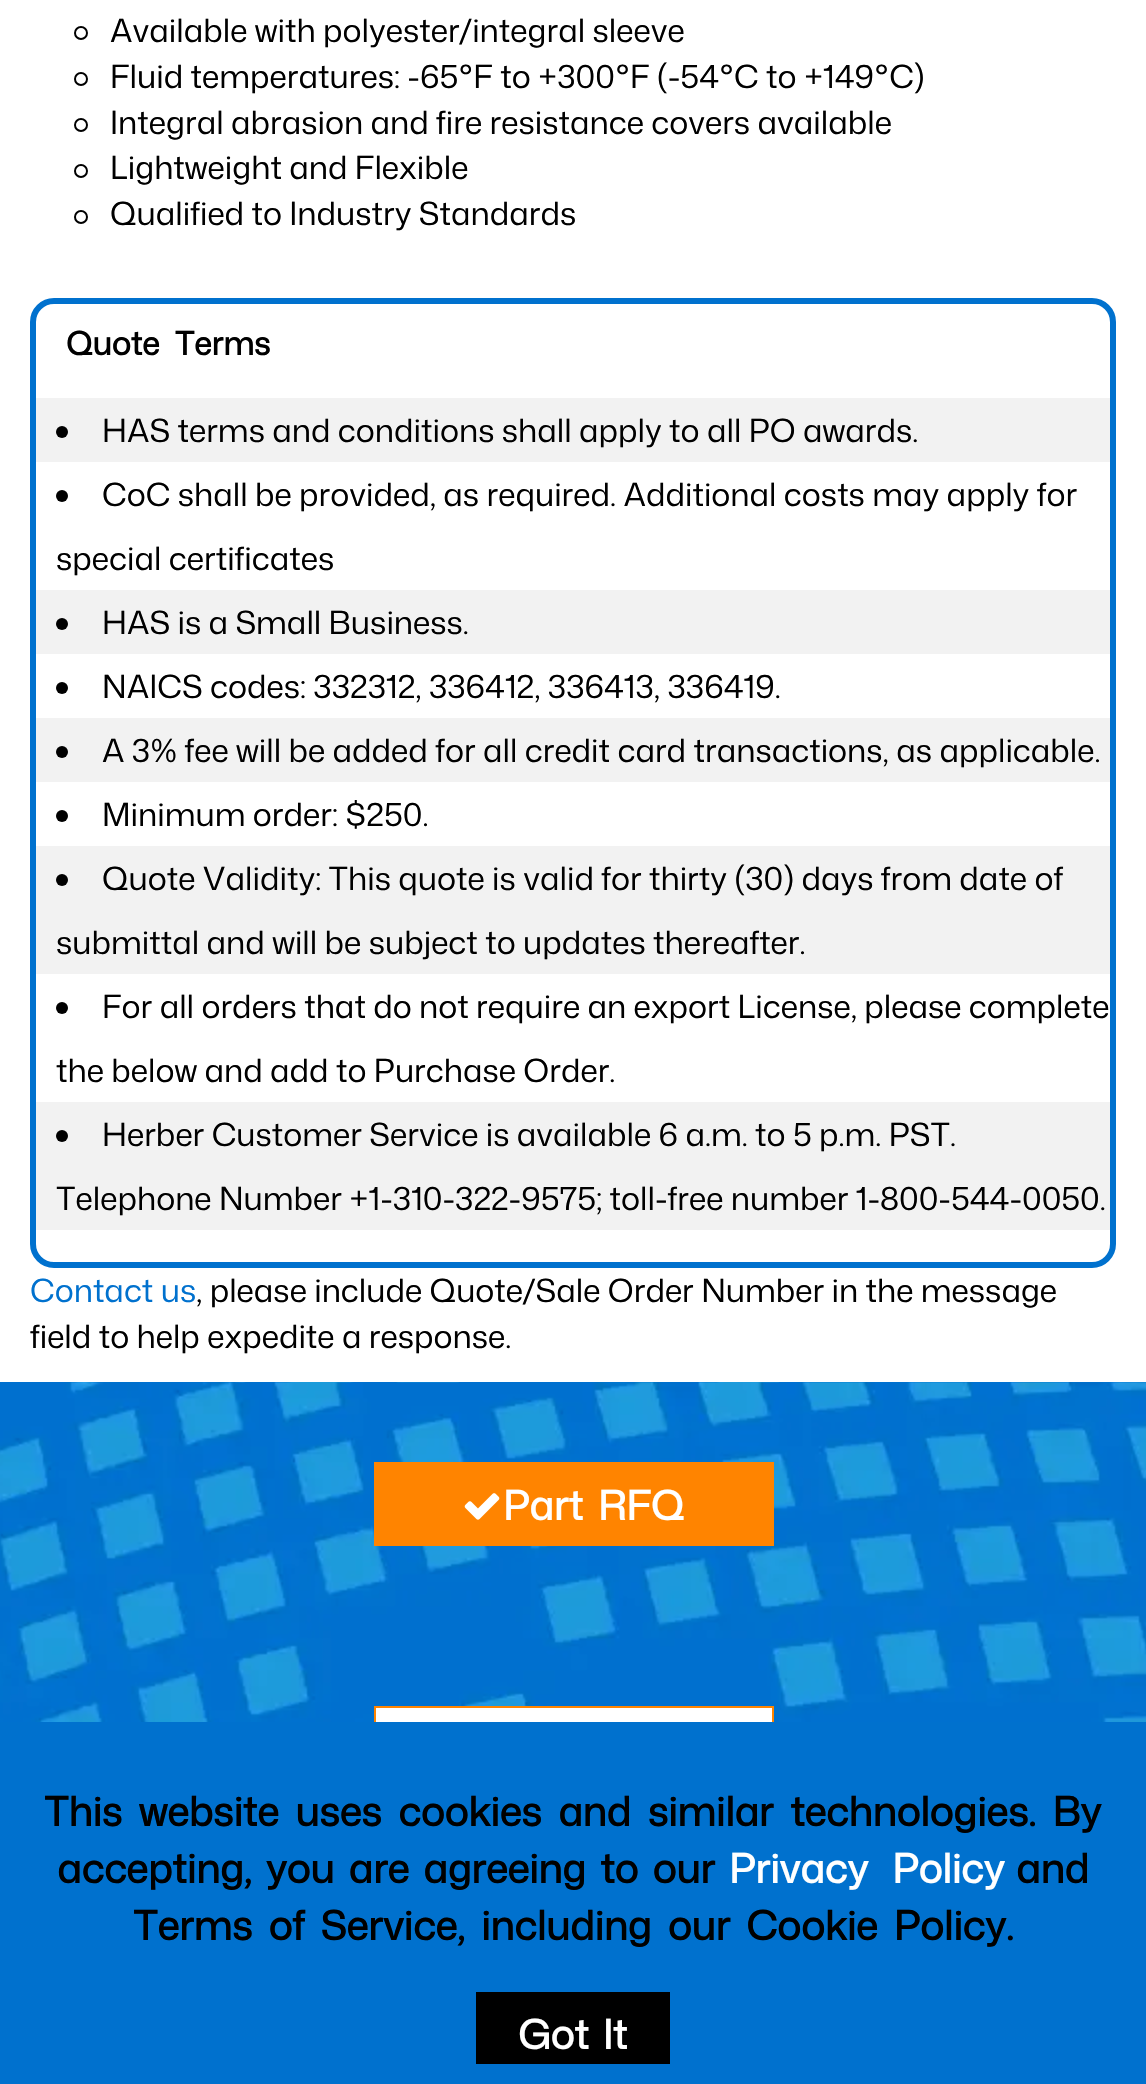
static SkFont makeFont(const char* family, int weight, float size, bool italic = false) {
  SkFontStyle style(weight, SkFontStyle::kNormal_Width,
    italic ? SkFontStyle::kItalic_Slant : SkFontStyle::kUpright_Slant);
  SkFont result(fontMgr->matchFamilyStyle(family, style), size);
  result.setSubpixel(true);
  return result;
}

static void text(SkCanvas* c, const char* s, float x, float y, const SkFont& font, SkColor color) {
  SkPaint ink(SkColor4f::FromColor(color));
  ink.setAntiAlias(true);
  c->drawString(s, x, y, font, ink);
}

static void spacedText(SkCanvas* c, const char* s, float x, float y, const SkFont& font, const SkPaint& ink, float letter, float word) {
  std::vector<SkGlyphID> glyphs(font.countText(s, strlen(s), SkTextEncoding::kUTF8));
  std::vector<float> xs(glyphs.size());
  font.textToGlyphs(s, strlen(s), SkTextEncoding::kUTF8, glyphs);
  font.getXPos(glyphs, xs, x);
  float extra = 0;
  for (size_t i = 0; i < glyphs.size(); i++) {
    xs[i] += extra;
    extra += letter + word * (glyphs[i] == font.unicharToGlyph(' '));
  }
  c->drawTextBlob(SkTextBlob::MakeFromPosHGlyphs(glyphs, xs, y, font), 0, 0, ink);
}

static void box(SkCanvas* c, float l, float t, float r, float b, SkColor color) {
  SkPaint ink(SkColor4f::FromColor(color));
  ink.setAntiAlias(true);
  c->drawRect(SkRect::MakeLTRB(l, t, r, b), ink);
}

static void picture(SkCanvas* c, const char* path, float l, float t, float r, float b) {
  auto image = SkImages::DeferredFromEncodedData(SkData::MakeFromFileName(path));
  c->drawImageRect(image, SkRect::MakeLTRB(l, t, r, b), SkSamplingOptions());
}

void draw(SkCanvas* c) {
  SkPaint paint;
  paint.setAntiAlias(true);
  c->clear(0xffffffff);
  paint.setStyle(SkPaint::kStroke_Style);
  paint.setStrokeWidth(2);
  paint.setColor(0xff000000);
  c->drawCircle(81, 33, 6, paint);
  SkFont face1 = makeFont("Mona Sans", 400, 32);
  text(c, "Available with polyester/integral sleeve", 110, 42, face1, 0xff000000);
  c->drawCircle(81, 79, 6, paint);
  text(c, "Fluid temperatures: -65°F to +300°F (-54°C to +149°C)", 110, 88, face1, 0xff000000);
  c->drawCircle(81, 125, 6, paint);
  text(c, "Integral abrasion and fire resistance covers available", 110, 134, face1, 0xff000000);
  c->drawCircle(81, 171, 6, paint);
  text(c, "Lightweight and Flexible", 110, 179, face1, 0xff000000);
  c->drawCircle(81, 217, 6, paint);
  text(c, "Qualified to Industry Standards", 110, 225, face1, 0xff000000);
  paint.setStrokeWidth(6);
  paint.setColor(0xff0071ce);
  c->drawRoundRect(SkRect::MakeLTRB(33, 301, 1113, 1265), 21, 21, paint);
  SkFont face2 = makeFont("Mona Sans", 700, 32);
  paint.setStyle(SkPaint::kFill_Style);
  paint.setColor(0xff000000);
  spacedText(c, "Quote Terms", 66, 355, face2, paint, 0, 8);
  box(c, 36, 398, 1110, 462, 0xfff2f2f2);
  c->drawCircle(62, 432, 6, paint);
  text(c, "HAS terms and conditions shall apply to all PO awards.", 102, 442, face1, 0xff000000);
  c->drawCircle(62, 496, 6, paint);
  text(c, "CoC shall be provided, as required. Additional costs may apply for", 102, 506, face1, 0xff000000);
  text(c, "special certificates", 56, 570, face1, 0xff000000);
  box(c, 36, 590, 1110, 654, 0xfff2f2f2);
  c->drawCircle(62, 624, 6, paint);
  text(c, "HAS is a Small Business.", 102, 634, face1, 0xff000000);
  c->drawCircle(62, 688, 6, paint);
  text(c, "NAICS codes: 332312, 336412, 336413, 336419.", 102, 698, face1, 0xff000000);
  box(c, 36, 718, 1110, 782, 0xfff2f2f2);
  c->drawCircle(62, 752, 6, paint);
  text(c, "A 3% fee will be added for all credit card transactions, as applicable.", 102, 762, face1, 0xff000000);
  c->drawCircle(62, 816, 6, paint);
  text(c, "Minimum order: $250.", 102, 826, face1, 0xff000000);
  box(c, 36, 846, 1110, 974, 0xfff2f2f2);
  c->drawCircle(62, 880, 6, paint);
  text(c, "Quote Validity: This quote is valid for thirty (30) days from date of", 102, 890, face1, 0xff000000);
  text(c, "submittal and will be subject to updates thereafter.", 56, 954, face1, 0xff000000);
  c->drawCircle(62, 1008, 6, paint);
  text(c, "For all orders that do not require an export License, please complete", 102, 1018, face1, 0xff000000);
  text(c, "the below and add to Purchase Order.", 56, 1082, face1, 0xff000000);
  box(c, 36, 1102, 1110, 1230, 0xfff2f2f2);
  c->drawCircle(62, 1136, 6, paint);
  text(c, "Herber Customer Service is available 6 a.m. to 5 p.m. PST.", 102, 1146, face1, 0xff000000);
  text(c, "Telephone Number +1-310-322-9575; toll-free number 1-800-544-0050.", 56, 1210, face1, 0xff000000);
  text(c, "Contact us", 30, 1302, face1, 0xff0071ce);
  text(c, ", please include Quote/Sale Order Number in the message", 196, 1302, face1, 0xff000000);
  text(c, "field to help expedite a response.", 30, 1348, face1, 0xff000000);
  picture(c, "img_01.png", 0, 1382, 1146, 1722);
  box(c, 374, 1462, 774, 1546, 0xffff8400);
  picture(c, "img_02.png", 464, 1493, 500, 1520);
  SkFont face3 = makeFont("Mona Sans", 700, 40);
  paint.setColor(0xffffffff);
  spacedText(c, "Part RFQ", 503, 1520, face3, paint, 0, 6);
  box(c, 376, 1708, 772, 1722, 0xffffffff);
  paint.setStyle(SkPaint::kStroke_Style);
  paint.setStrokeWidth(2);
  paint.setColor(0xffff8400);
  c->drawRect(SkRect::MakeLTRB(375, 1707, 773, 1791), paint);
  box(c, 0, 1722, 1146, 2084, 0xff0071ce);
  paint.setStyle(SkPaint::kFill_Style);
  paint.setColor(0xff000000);
  spacedText(c, "This website uses cookies and similar technologies. By", 44, 1826, face3, paint, 0, 7.5f);
  spacedText(c, "accepting, you are agreeing to our", 57, 1883, face3, paint, 0, 5);
  paint.setColor(0xffffffff);
  spacedText(c, "Privacy Policy", 729, 1883, face3, paint, 0, 15);
  text(c, "and", 1016, 1883, face3, 0xff000000);
  paint.setColor(0xff000000);
  spacedText(c, "Terms of Service, including our Cookie Policy.", 133, 1940, face3, paint, 0, 7);
  box(c, 476, 1992, 670, 2064, 0xff000000);
  paint.setColor(0xffffffff);
  spacedText(c, "Got It", 518, 2049, face3, paint, 0, 5);
}
